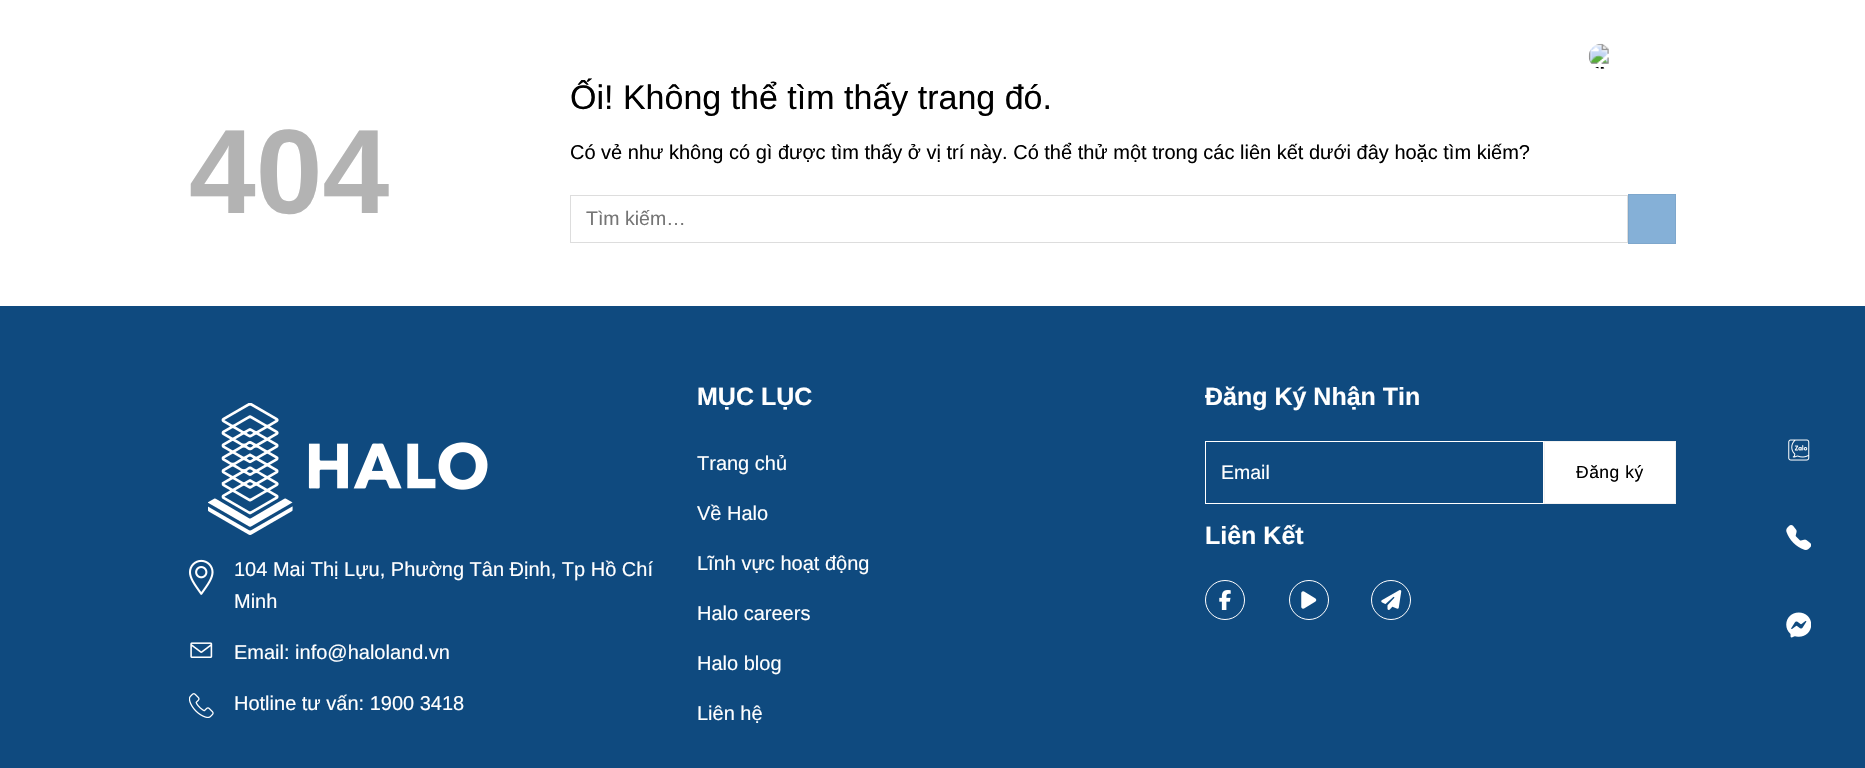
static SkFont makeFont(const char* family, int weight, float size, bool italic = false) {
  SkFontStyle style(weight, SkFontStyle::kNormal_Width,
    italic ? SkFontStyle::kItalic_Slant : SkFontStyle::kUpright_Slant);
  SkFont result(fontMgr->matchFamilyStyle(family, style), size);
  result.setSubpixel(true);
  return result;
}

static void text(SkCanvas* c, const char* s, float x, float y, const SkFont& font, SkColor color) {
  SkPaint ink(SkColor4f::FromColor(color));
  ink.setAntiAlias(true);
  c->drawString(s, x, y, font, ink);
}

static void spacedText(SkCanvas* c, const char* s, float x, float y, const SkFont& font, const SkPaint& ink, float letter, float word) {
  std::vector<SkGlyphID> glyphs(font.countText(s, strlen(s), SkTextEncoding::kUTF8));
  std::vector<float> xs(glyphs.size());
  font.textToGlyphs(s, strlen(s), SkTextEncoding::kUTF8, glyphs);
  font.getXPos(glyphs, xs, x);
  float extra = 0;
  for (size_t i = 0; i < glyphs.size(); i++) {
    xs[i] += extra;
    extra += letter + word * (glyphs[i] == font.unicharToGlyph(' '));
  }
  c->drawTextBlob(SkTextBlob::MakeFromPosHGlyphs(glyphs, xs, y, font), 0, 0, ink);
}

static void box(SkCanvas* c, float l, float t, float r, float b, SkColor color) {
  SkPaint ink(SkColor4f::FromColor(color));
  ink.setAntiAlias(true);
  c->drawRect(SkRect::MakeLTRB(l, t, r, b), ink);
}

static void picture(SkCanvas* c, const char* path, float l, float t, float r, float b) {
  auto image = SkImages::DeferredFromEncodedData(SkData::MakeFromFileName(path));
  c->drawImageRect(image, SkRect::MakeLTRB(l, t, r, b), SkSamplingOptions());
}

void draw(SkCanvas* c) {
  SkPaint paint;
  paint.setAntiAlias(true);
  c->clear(0xffffffff);
  picture(c, "img_01.png", 1588, 43, 1609, 69);
  SkFont face1 = makeFont("Liberation Sans", 700, 120);
  text(c, "404", 189, 213, face1, 0xffb3b3b3);
  SkFont face2 = makeFont("Liberation Sans", 400, 34);
  text(c, "Ối! Không thể tìm thấy trang đó.", 570, 109, face2, 0xff000000);
  SkFont face3 = makeFont("Liberation Sans", 400, 20);
  text(c, "Có vẻ như không có gì được tìm thấy ở vị trí này. Có thể thử một trong các liên kết dưới đây hoặc tìm kiếm?", 570, 159, face3, 0xff000000);
  paint.setStyle(SkPaint::kStroke_Style);
  paint.setStrokeWidth(1);
  paint.setColor(0xffdddddd);
  c->drawRect(SkRect::MakeLTRB(570.5f, 195.5f, 1627.5f, 242.5f), paint);
  SkFont face4 = makeFont("Liberation Sans", 400, 19.5f);
  text(c, "Tìm kiếm…", 586, 225, face4, 0xff757575);
  paint.setStyle(SkPaint::kFill_Style);
  paint.setColor(0xff85b0d7);
  c->drawRect(SkRect::MakeLTRB(1628.5f, 194.5f, 1675.5f, 243.5f), paint);
  paint.setStyle(SkPaint::kStroke_Style);
  paint.setColor(0xff7ea7cc);
  c->drawRect(SkRect::MakeLTRB(1628.5f, 194.5f, 1675.5f, 243.5f), paint);
  box(c, 0, 306, 1865, 768, 0xff0f4a7f);
  picture(c, "img_02.png", 208, 403, 488, 535);
  picture(c, "img_03.png", 189, 559, 214, 595);
  text(c, "104 Mai Thị Lựu, Phường Tân Định, Tp Hồ Chí", 234, 576, face3, 0xffffffff);
  text(c, "Minh", 234, 608, face3, 0xffffffff);
  picture(c, "img_04.png", 190, 642, 213, 658);
  text(c, "Email: info@haloland.vn", 234, 659, face3, 0xffffffff);
  picture(c, "img_05.png", 189, 693, 214, 718);
  text(c, "Hotline tư vấn: 1900 3418", 234, 710, face3, 0xffffffff);
  SkFont face5 = makeFont("Liberation Sans", 700, 25);
  text(c, "MỤC LỤC", 697, 405, face5, 0xffffffff);
  text(c, "Trang chủ", 697, 470, face3, 0xffffffff);
  text(c, "Về Halo", 697, 520, face3, 0xffffffff);
  text(c, "Lĩnh vực hoạt động", 697, 570, face3, 0xffffffff);
  text(c, "Halo careers", 697, 620, face3, 0xffffffff);
  text(c, "Halo blog", 697, 670, face3, 0xffffffff);
  text(c, "Liên hệ", 697, 720, face3, 0xffffffff);
  text(c, "Đăng Ký Nhận Tin", 1205, 405, face5, 0xffffffff);
  paint.setColor(0xffffffff);
  c->drawRect(SkRect::MakeLTRB(1205.5f, 441.5f, 1543.5f, 503.5f), paint);
  text(c, "Email", 1221, 479, face4, 0xffffffff);
  paint.setStyle(SkPaint::kFill_Style);
  c->drawRect(SkRect::MakeLTRB(1544.5f, 441.5f, 1675.5f, 503.5f), paint);
  paint.setStyle(SkPaint::kStroke_Style);
  paint.setColor(0xfff2f2f2);
  c->drawRect(SkRect::MakeLTRB(1544.5f, 441.5f, 1675.5f, 503.5f), paint);
  SkFont face6 = makeFont("Liberation Sans", 400, 17.5f);
  paint.setStyle(SkPaint::kFill_Style);
  paint.setColor(0xff000000);
  spacedText(c, "Đăng ký", 1576, 478, face6, paint, 0.5f, 0);
  text(c, "Liên Kết", 1205, 544, face5, 0xffffffff);
  paint.setStyle(SkPaint::kStroke_Style);
  paint.setColor(0xffffffff);
  c->drawCircle(1225, 600, 19.5f, paint);
  picture(c, "img_06.png", 1219, 590, 1231, 610);
  c->drawCircle(1309, 600, 19.5f, paint);
  picture(c, "img_07.png", 1301, 591, 1317, 609);
  c->drawCircle(1391, 600, 19.5f, paint);
  picture(c, "img_08.png", 1381, 590, 1402, 610);
  picture(c, "img_09.png", 1788, 439, 1810, 461);
  picture(c, "img_10.png", 1786, 525, 1811, 550);
  picture(c, "img_11.png", 1786, 612, 1811, 638);
}
